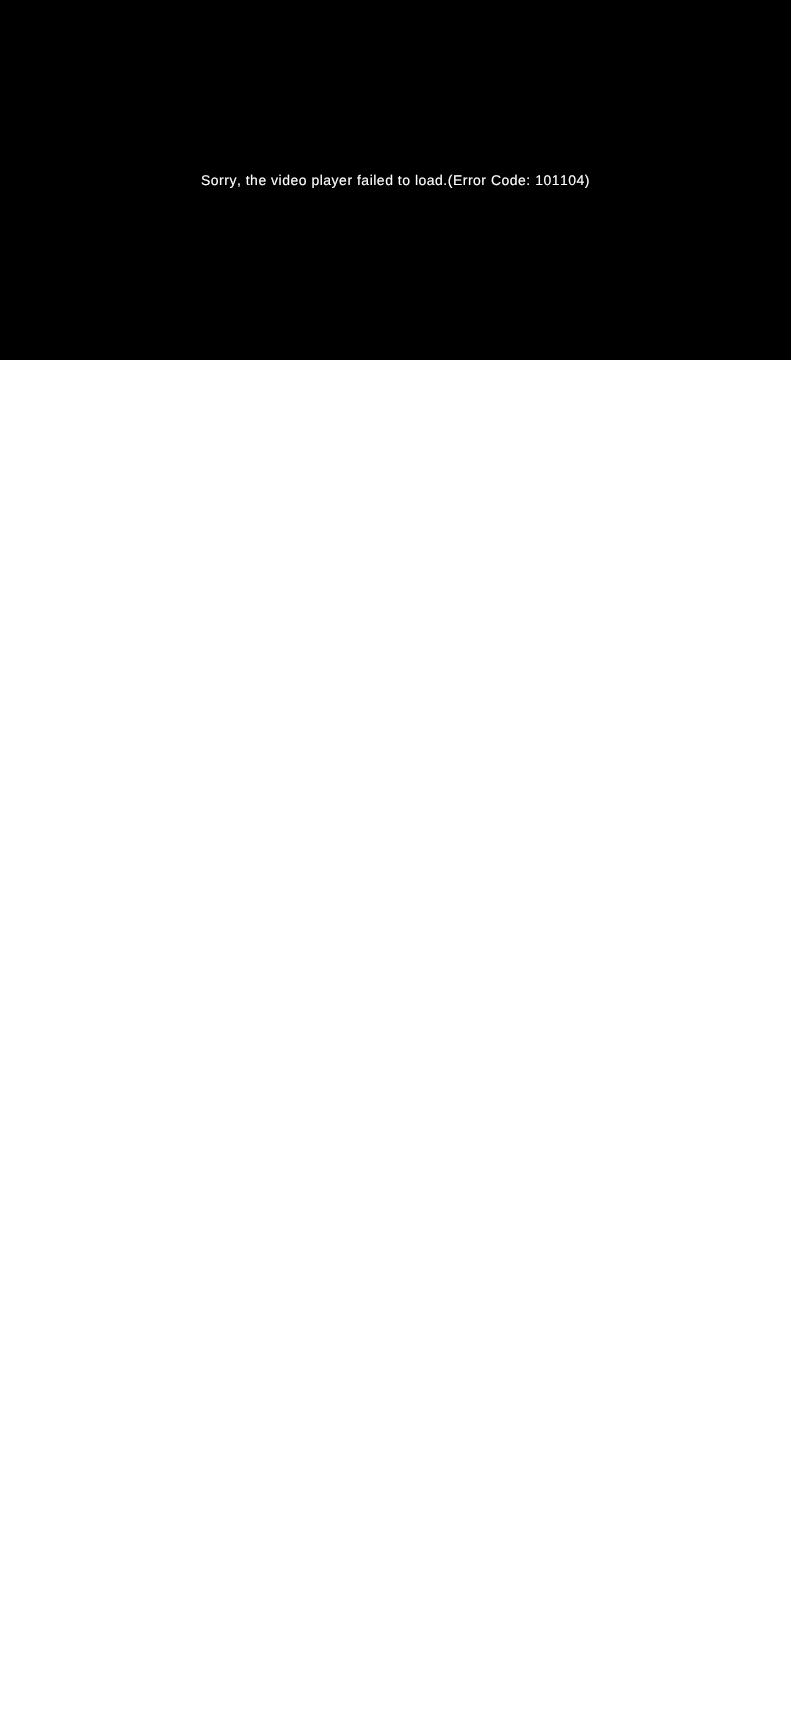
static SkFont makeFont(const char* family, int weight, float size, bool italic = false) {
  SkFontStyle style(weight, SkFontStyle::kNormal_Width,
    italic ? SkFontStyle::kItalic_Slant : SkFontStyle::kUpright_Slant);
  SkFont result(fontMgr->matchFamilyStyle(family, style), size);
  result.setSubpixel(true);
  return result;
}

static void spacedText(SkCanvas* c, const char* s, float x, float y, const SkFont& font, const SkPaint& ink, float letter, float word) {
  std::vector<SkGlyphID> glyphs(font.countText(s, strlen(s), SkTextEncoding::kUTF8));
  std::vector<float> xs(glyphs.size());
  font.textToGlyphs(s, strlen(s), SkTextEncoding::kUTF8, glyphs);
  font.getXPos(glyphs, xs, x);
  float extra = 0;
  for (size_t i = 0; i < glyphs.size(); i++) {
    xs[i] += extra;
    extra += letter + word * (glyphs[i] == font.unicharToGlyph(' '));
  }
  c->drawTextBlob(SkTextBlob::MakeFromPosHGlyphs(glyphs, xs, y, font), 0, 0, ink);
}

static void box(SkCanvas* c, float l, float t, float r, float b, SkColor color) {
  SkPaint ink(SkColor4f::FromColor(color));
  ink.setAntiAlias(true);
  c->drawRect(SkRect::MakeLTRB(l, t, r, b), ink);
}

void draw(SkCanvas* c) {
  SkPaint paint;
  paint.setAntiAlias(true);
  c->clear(0xffffffff);
  box(c, 0, 0, 791, 360, 0xff000000);
  SkFont face1 = makeFont("Liberation Sans", 400, 14);
  paint.setColor(0xffffffff);
  spacedText(c, "Sorry, the video player failed to load.(Error Code: 101104)", 201, 185, face1, paint, 0.5f, 0);
}
